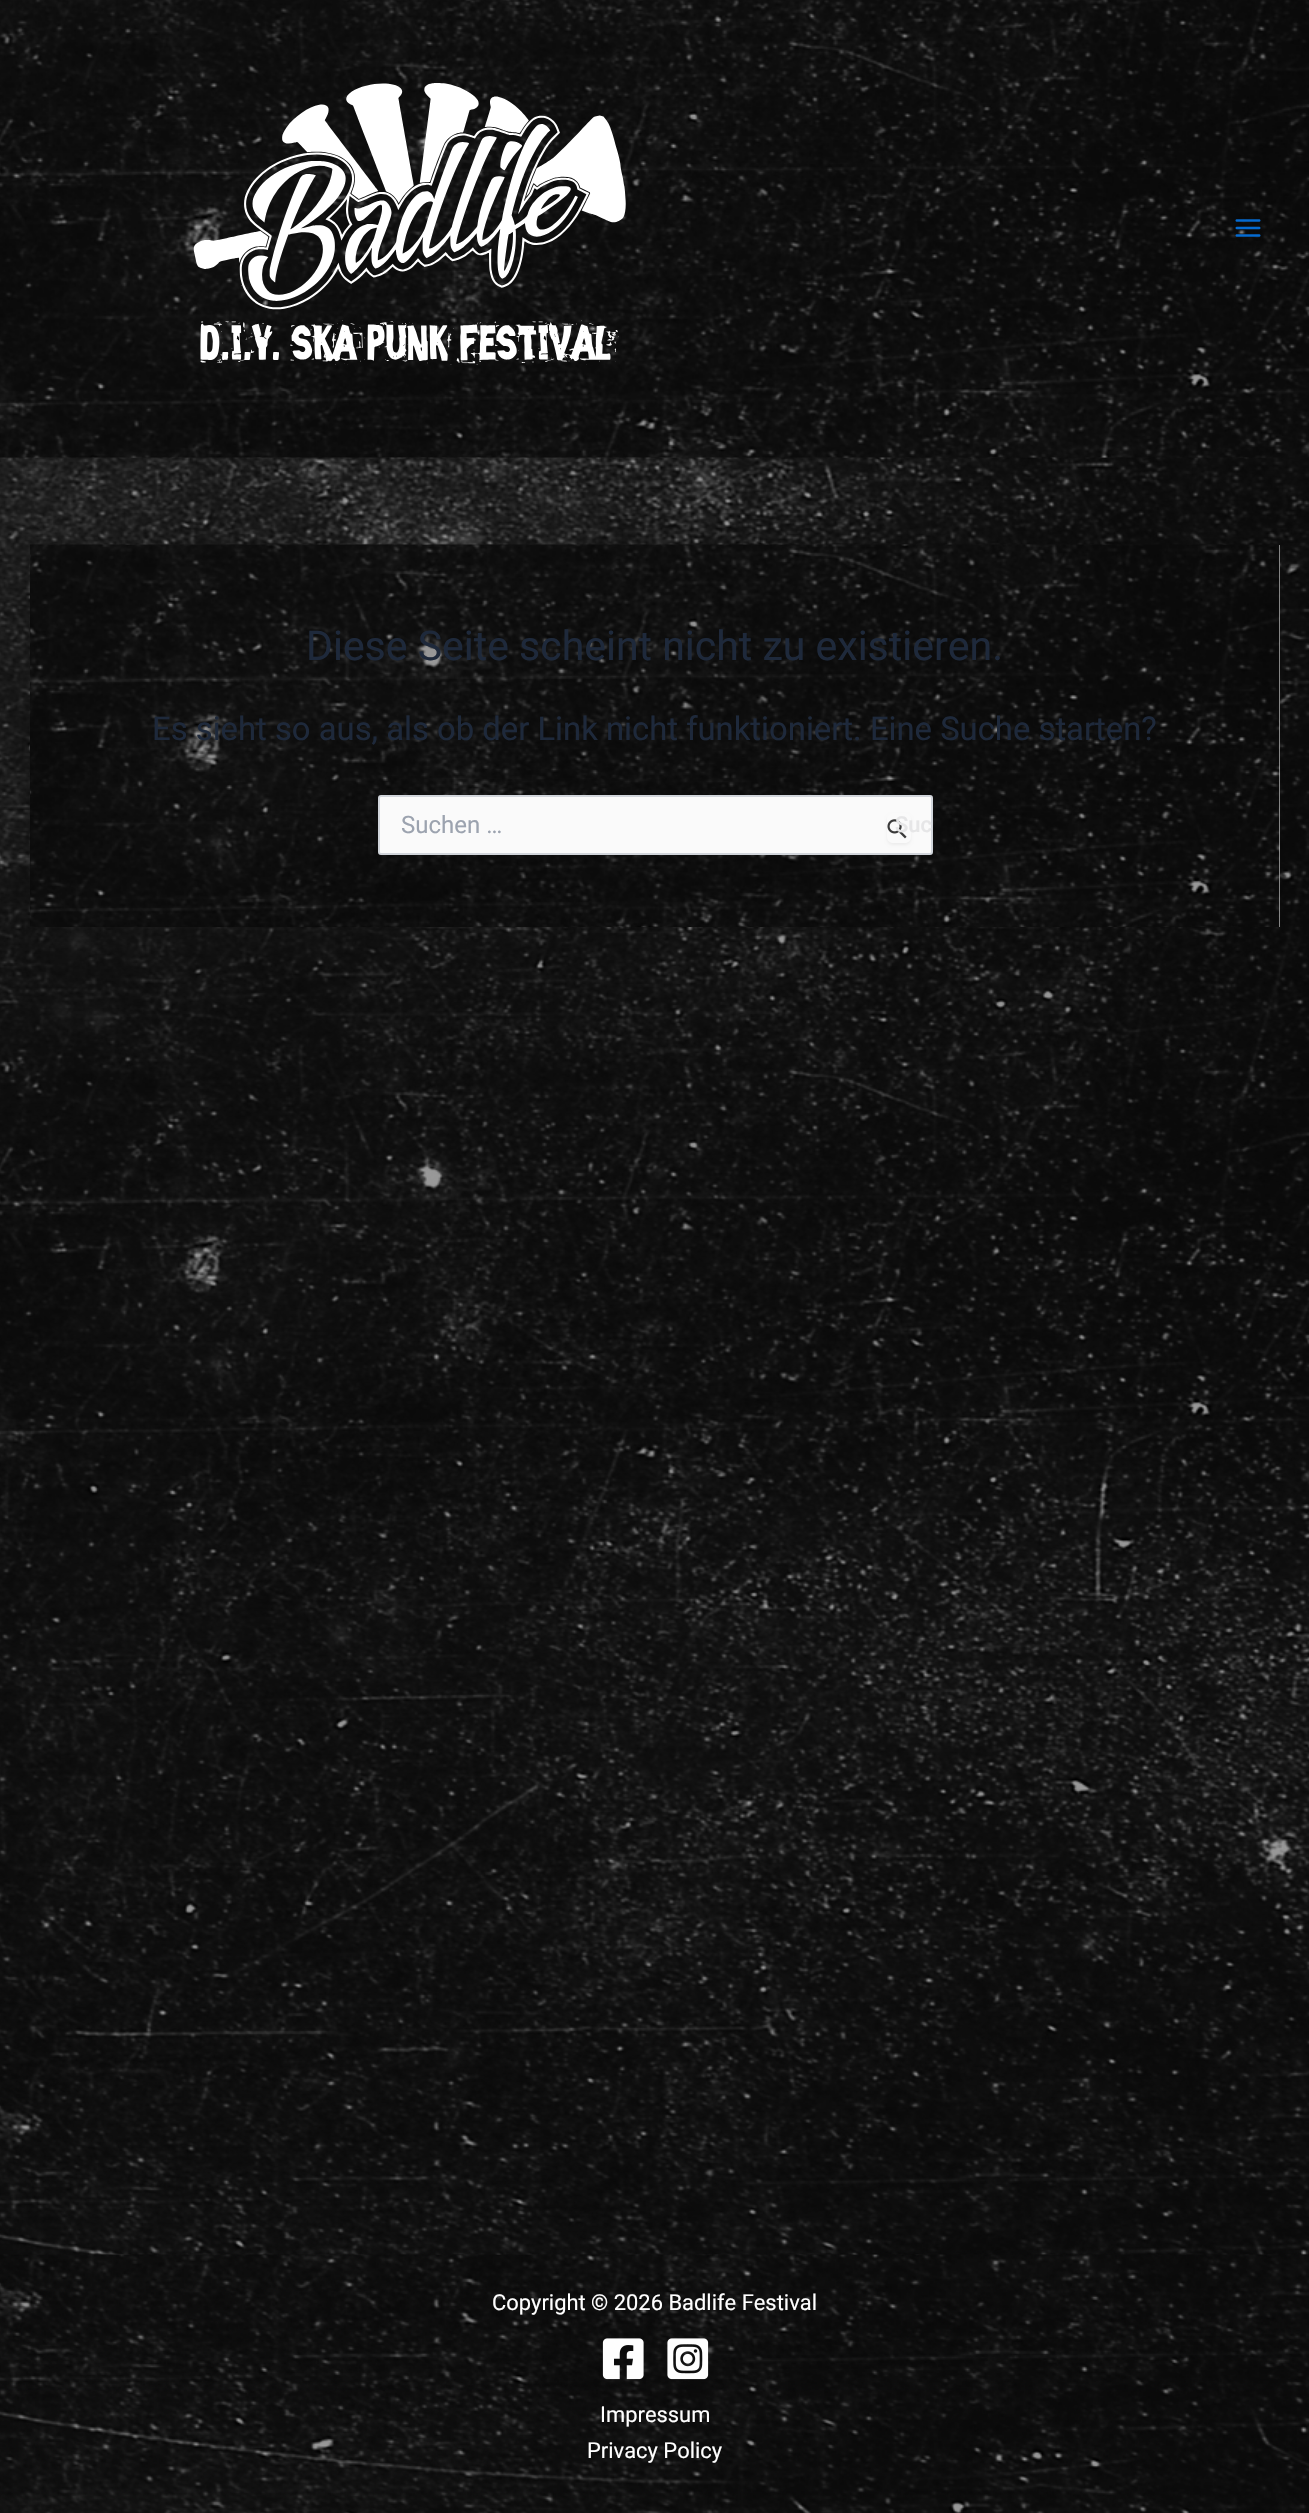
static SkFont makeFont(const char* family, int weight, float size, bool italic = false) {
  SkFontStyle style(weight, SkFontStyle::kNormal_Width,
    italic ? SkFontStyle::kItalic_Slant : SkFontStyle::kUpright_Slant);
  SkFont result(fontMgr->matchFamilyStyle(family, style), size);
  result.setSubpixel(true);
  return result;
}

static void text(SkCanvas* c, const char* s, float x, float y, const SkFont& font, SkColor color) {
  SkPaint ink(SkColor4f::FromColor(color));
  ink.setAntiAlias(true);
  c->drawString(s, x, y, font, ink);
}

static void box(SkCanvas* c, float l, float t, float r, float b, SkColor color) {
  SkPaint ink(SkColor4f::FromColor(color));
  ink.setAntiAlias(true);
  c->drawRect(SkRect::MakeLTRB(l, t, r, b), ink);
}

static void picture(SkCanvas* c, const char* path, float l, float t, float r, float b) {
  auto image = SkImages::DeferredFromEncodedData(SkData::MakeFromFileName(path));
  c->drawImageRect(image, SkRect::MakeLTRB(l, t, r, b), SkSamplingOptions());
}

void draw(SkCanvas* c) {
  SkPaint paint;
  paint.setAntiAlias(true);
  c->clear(0xffffffff);
  picture(c, "img_01.png", 0, 457, 1309, 2255);
  picture(c, "img_02.png", 0, 0, 1309, 458);
  picture(c, "img_03.png", 193, 83, 626, 365);
  picture(c, "img_04.png", 1235, 219, 1261, 237);
  box(c, 1279, 545, 1280, 927, 0xffffffff);
  picture(c, "img_05.png", 30, 544, 1280, 927);
  SkFont face1 = makeFont("Roboto", 400, 41);
  text(c, "Diese Seite scheint nicht zu existieren.", 306, 660, face1, 0xff1e293b);
  SkFont face2 = makeFont("Roboto", 400, 32.8f);
  text(c, "Es sieht so aus, als ob der Link nicht funktioniert. Eine Suche starten?", 152, 740, face2, 0xff1e293b);
  paint.setColor(0xfffafafa);
  c->drawRoundRect(SkRect::MakeLTRB(379, 796, 932, 854), 2, 2, paint);
  paint.setStyle(SkPaint::kStroke_Style);
  paint.setStrokeWidth(2);
  paint.setColor(0xffd1d5db);
  c->drawRoundRect(SkRect::MakeLTRB(379, 796, 932, 854), 2, 2, paint);
  SkFont face3 = makeFont("Roboto", 400, 24);
  text(c, "Suchen …", 401, 833, face3, 0xff9ca3af);
  c->save();
  c->clipPath(SkPathBuilder(SkPathFillType::kEvenOdd).moveTo(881, 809).lineTo(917, 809).lineTo(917, 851).lineTo(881, 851).close().moveTo(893, 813).lineTo(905, 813).cubicTo(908.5f, 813, 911, 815.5f, 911, 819).lineTo(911, 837).cubicTo(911, 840.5f, 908.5f, 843, 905, 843).lineTo(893, 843).cubicTo(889.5f, 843, 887, 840.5f, 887, 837).lineTo(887, 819).cubicTo(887, 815.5f, 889.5f, 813, 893, 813).close().detach(), true);
  paint.setStyle(SkPaint::kFill_Style);
  paint.setColor(0x0d000000);
  paint.setMaskFilter(SkMaskFilter::MakeBlur(kNormal_SkBlurStyle, 1.5f));
  c->drawRoundRect(SkRect::MakeLTRB(887, 815, 911, 845), 6, 6, paint);
  paint.setMaskFilter(nullptr);
  c->restore();
  picture(c, "img_06.png", 887, 819, 907, 839);
  SkFont face4 = makeFont("Roboto", 500, 21.9f);
  text(c, "Suc", 895, 832, face4, 0xffe6e6e7);
  picture(c, "img_07.png", 0, 2254, 1309, 2513);
  SkFont face5 = makeFont("Roboto", 400, 21.9f);
  text(c, "Copyright © 2026 Badlife Festival", 492, 2310, face5, 0xffffffff);
  picture(c, "img_08.png", 602, 2338, 644, 2380);
  picture(c, "img_09.png", 667, 2338, 709, 2380);
  text(c, "Impressum", 600, 2422, face5, 0xffffffff);
  text(c, "Privacy Policy", 587, 2458, face5, 0xffffffff);
}
